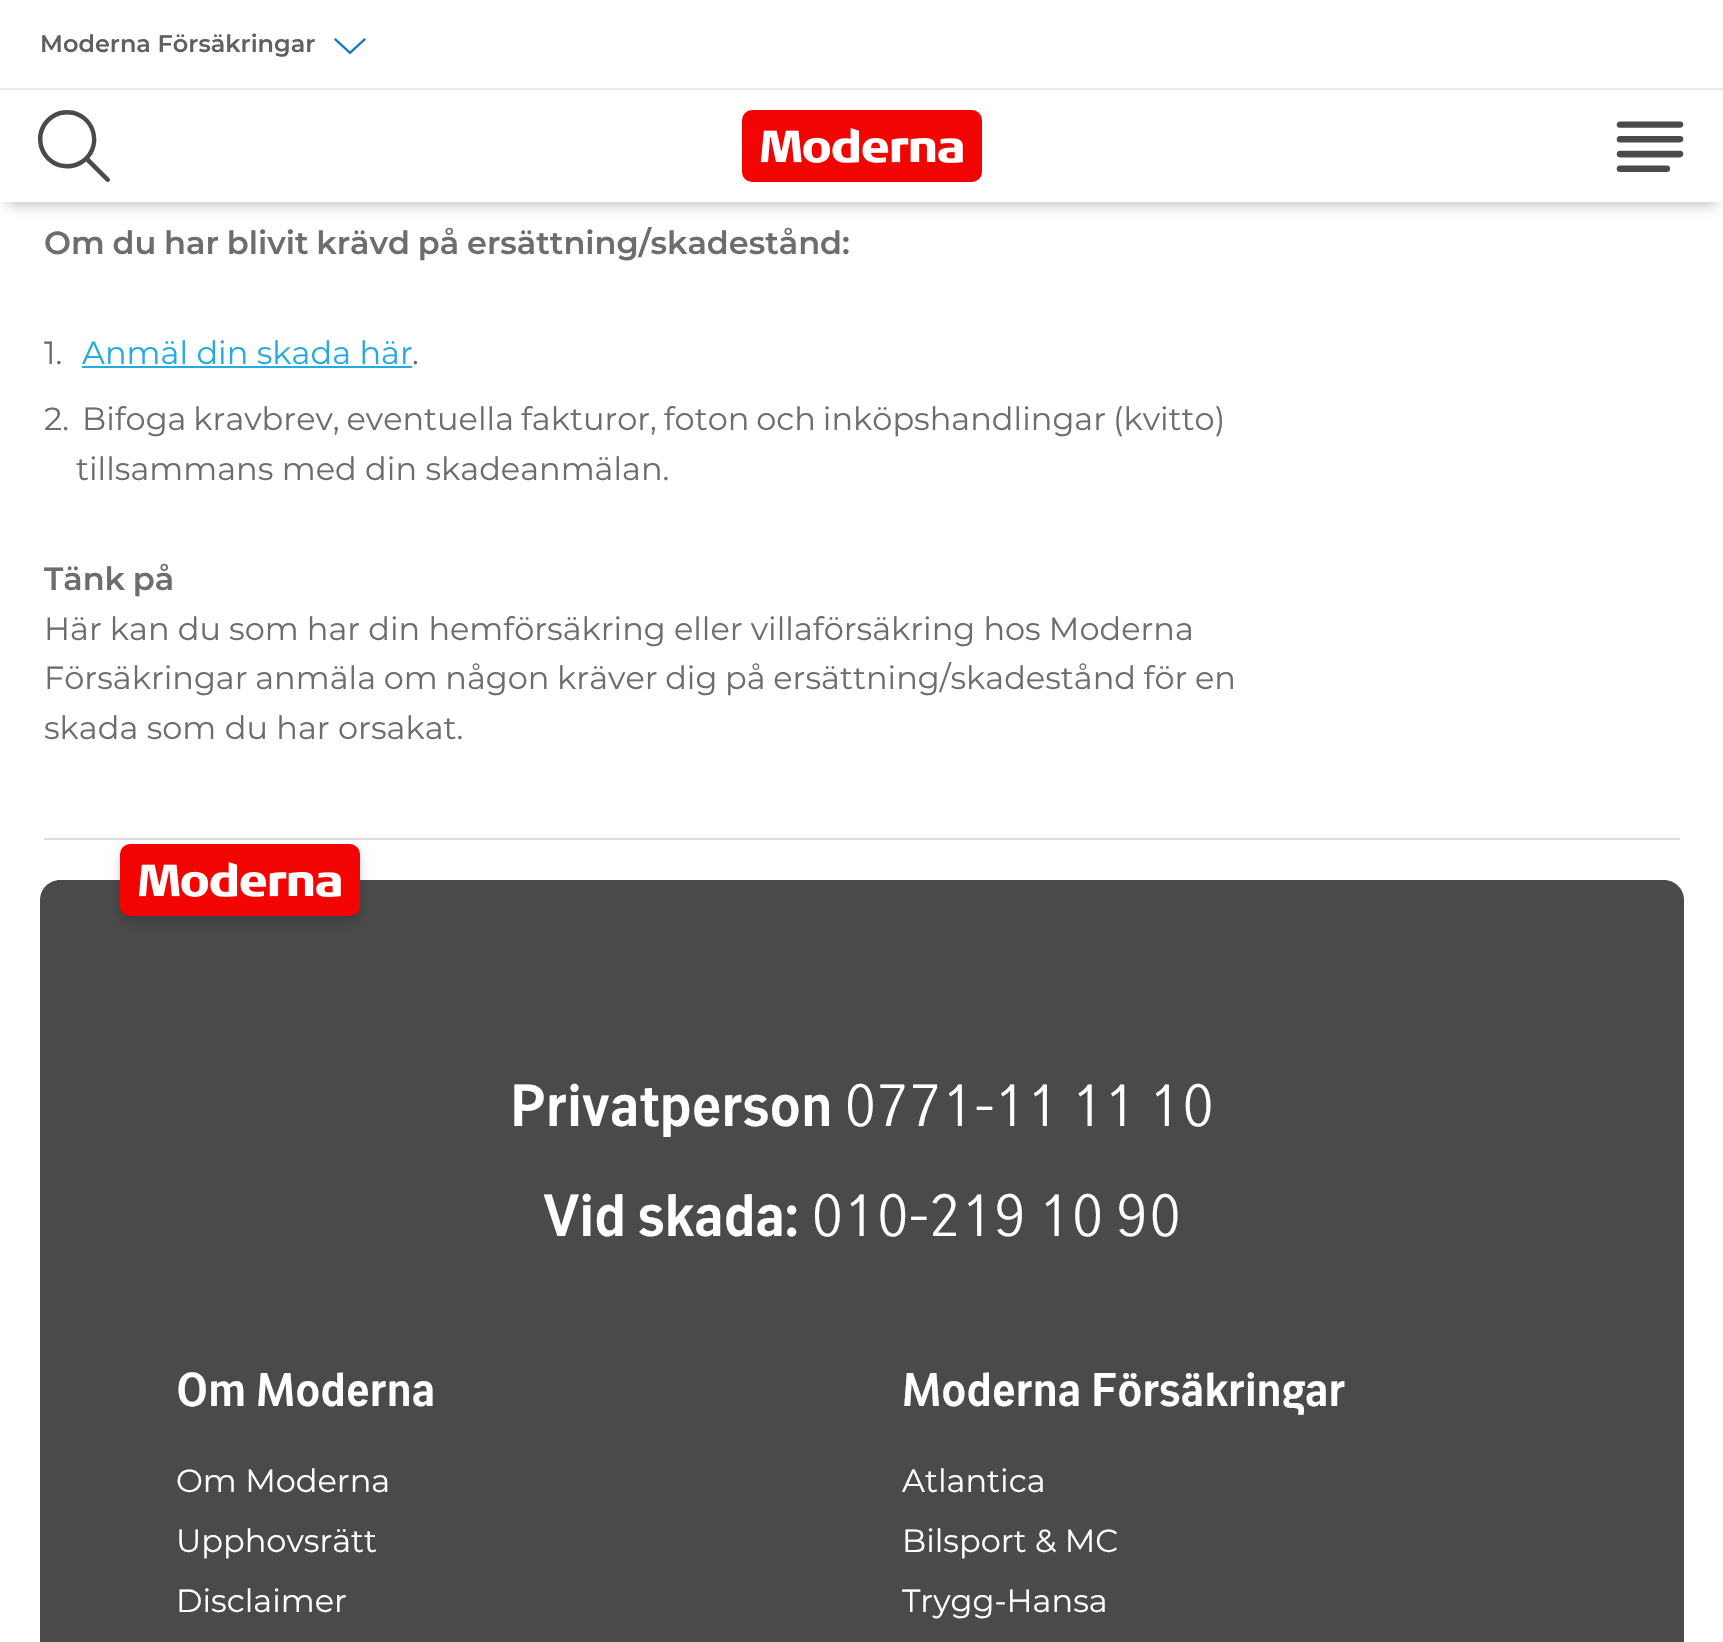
static SkFont makeFont(const char* family, int weight, float size, bool italic = false) {
  SkFontStyle style(weight, SkFontStyle::kNormal_Width,
    italic ? SkFontStyle::kItalic_Slant : SkFontStyle::kUpright_Slant);
  SkFont result(fontMgr->matchFamilyStyle(family, style), size);
  result.setSubpixel(true);
  return result;
}

static void text(SkCanvas* c, const char* s, float x, float y, const SkFont& font, SkColor color) {
  SkPaint ink(SkColor4f::FromColor(color));
  ink.setAntiAlias(true);
  c->drawString(s, x, y, font, ink);
}

static void spacedText(SkCanvas* c, const char* s, float x, float y, const SkFont& font, const SkPaint& ink, float letter, float word) {
  std::vector<SkGlyphID> glyphs(font.countText(s, strlen(s), SkTextEncoding::kUTF8));
  std::vector<float> xs(glyphs.size());
  font.textToGlyphs(s, strlen(s), SkTextEncoding::kUTF8, glyphs);
  font.getXPos(glyphs, xs, x);
  float extra = 0;
  for (size_t i = 0; i < glyphs.size(); i++) {
    xs[i] += extra;
    extra += letter + word * (glyphs[i] == font.unicharToGlyph(' '));
  }
  c->drawTextBlob(SkTextBlob::MakeFromPosHGlyphs(glyphs, xs, y, font), 0, 0, ink);
}

static void box(SkCanvas* c, float l, float t, float r, float b, SkColor color) {
  SkPaint ink(SkColor4f::FromColor(color));
  ink.setAntiAlias(true);
  c->drawRect(SkRect::MakeLTRB(l, t, r, b), ink);
}

static void roundBox(SkCanvas* c, float l, float t, float r, float b, float radius, SkColor color) {
  SkPaint ink(SkColor4f::FromColor(color));
  ink.setAntiAlias(true);
  c->drawRoundRect(SkRect::MakeLTRB(l, t, r, b), radius, radius, ink);
}

static void picture(SkCanvas* c, const char* path, float l, float t, float r, float b) {
  auto image = SkImages::DeferredFromEncodedData(SkData::MakeFromFileName(path));
  c->drawImageRect(image, SkRect::MakeLTRB(l, t, r, b), SkSamplingOptions());
}

void draw(SkCanvas* c) {
  SkPaint paint;
  paint.setAntiAlias(true);
  c->clear(0xffffffff);
  paint.setColor(0x80707070);
  paint.setMaskFilter(SkMaskFilter::MakeBlur(kNormal_SkBlurStyle, 7));
  c->drawRect(SkRect::MakeLTRB(8, 18, 1716, 204), paint);
  paint.setMaskFilter(nullptr);
  box(c, 0, 5, 1723, 202, 0xffffffff);
  box(c, 0, 88, 1723, 90, 0xffeaeaea);
  SkFont face1 = makeFont("Montserrat", 100, 24);
  text(c, "Moderna Försäkringar", 40, 52, face1, 0xff606060);
  picture(c, "img_01.png", 334, 38, 366, 54);
  picture(c, "img_02.png", 38, 110, 110, 182);
  roundBox(c, 742, 110, 982, 182, 10, 0xfff20403);
  picture(c, "img_03.png", 761, 128, 963, 163);
  picture(c, "img_04.png", 1616, 121, 1684, 172);
  box(c, 44, 838, 1680, 840, 0xffdedede);
  SkFont face2 = makeFont("Montserrat", 100, 32);
  paint.setColor(0xff6d6d6d);
  spacedText(c, "Om du har blivit krävd på ersättning/skadestånd:", 44, 254, face2, paint, 0, -1);
  SkFont face3 = makeFont("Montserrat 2", 100, 32);
  text(c, "1.", 44, 364, face3, 0xff6d6d6d);
  text(c, "Anmäl din skada här", 82, 364, face3, 0xff26aae2);
  box(c, 82, 366, 412, 368, 0xff26aae2);
  text(c, ".", 412, 364, face3, 0xff6d6d6d);
  text(c, "2.", 44, 430, face3, 0xff6d6d6d);
  spacedText(c, "Bifoga kravbrev, eventuella fakturor, foton och inköpshandlingar (kvitto)", 82, 430, face3, paint, 0, -1.5f);
  text(c, "tillsammans med din skadeanmälan.", 76, 480, face3, 0xff6d6d6d);
  spacedText(c, "Tänk på", 44, 590, face2, paint, 0, -1);
  spacedText(c, "Här kan du som har din hemförsäkring eller villaförsäkring hos Moderna", 44, 640, face3, paint, 0, -0.25f);
  spacedText(c, "Försäkringar anmäla om någon kräver dig på ersättning/skadestånd för en", 44, 689, face3, paint, 0, -0.75f);
  text(c, "skada som du har orsakat.", 44, 739, face3, 0xff6d6d6d);
  paint.setColor(0xff4a4a4a);
  c->drawPath(SkPathBuilder().moveTo(60, 880).lineTo(1664, 880).cubicTo(1675, 880, 1684, 889, 1684, 900).lineTo(1684, 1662).lineTo(40, 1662).lineTo(40, 900).cubicTo(40, 889, 49, 880, 60, 880).close().detach(), paint);
  paint.setColor(0x29000000);
  paint.setMaskFilter(SkMaskFilter::MakeBlur(kNormal_SkBlurStyle, 6));
  c->drawRoundRect(SkRect::MakeLTRB(120, 850, 360, 922), 10, 10, paint);
  paint.setMaskFilter(nullptr);
  roundBox(c, 120, 844, 360, 916, 10, 0xfff20403);
  picture(c, "img_03.png", 139, 862, 341, 897);
  SkFont face4 = makeFont("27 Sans", 600, 60);
  text(c, "Privatperson", 510, 1126, face4, 0xffffffff);
  SkFont face5 = makeFont("27 Sans", 300, 60);
  text(c, "0771-11 11 10", 844, 1126, face5, 0xffffffff);
  text(c, "Vid skada:", 543, 1236, face4, 0xffffffff);
  text(c, "010-219 10 90", 811, 1236, face5, 0xffffffff);
  SkFont face6 = makeFont("27 Sans", 600, 48);
  text(c, "Om Moderna", 176, 1406, face6, 0xffffffff);
  text(c, "Om Moderna", 176, 1492, face3, 0xffffffff);
  text(c, "Upphovsrätt", 176, 1552, face3, 0xffffffff);
  text(c, "Disclaimer", 176, 1612, face3, 0xffffffff);
  text(c, "Moderna Försäkringar", 902, 1406, face6, 0xffffffff);
  text(c, "Atlantica", 902, 1492, face3, 0xffffffff);
  text(c, "Bilsport & MC", 902, 1552, face3, 0xffffffff);
  text(c, "Trygg-Hansa", 902, 1612, face3, 0xffffffff);
}
